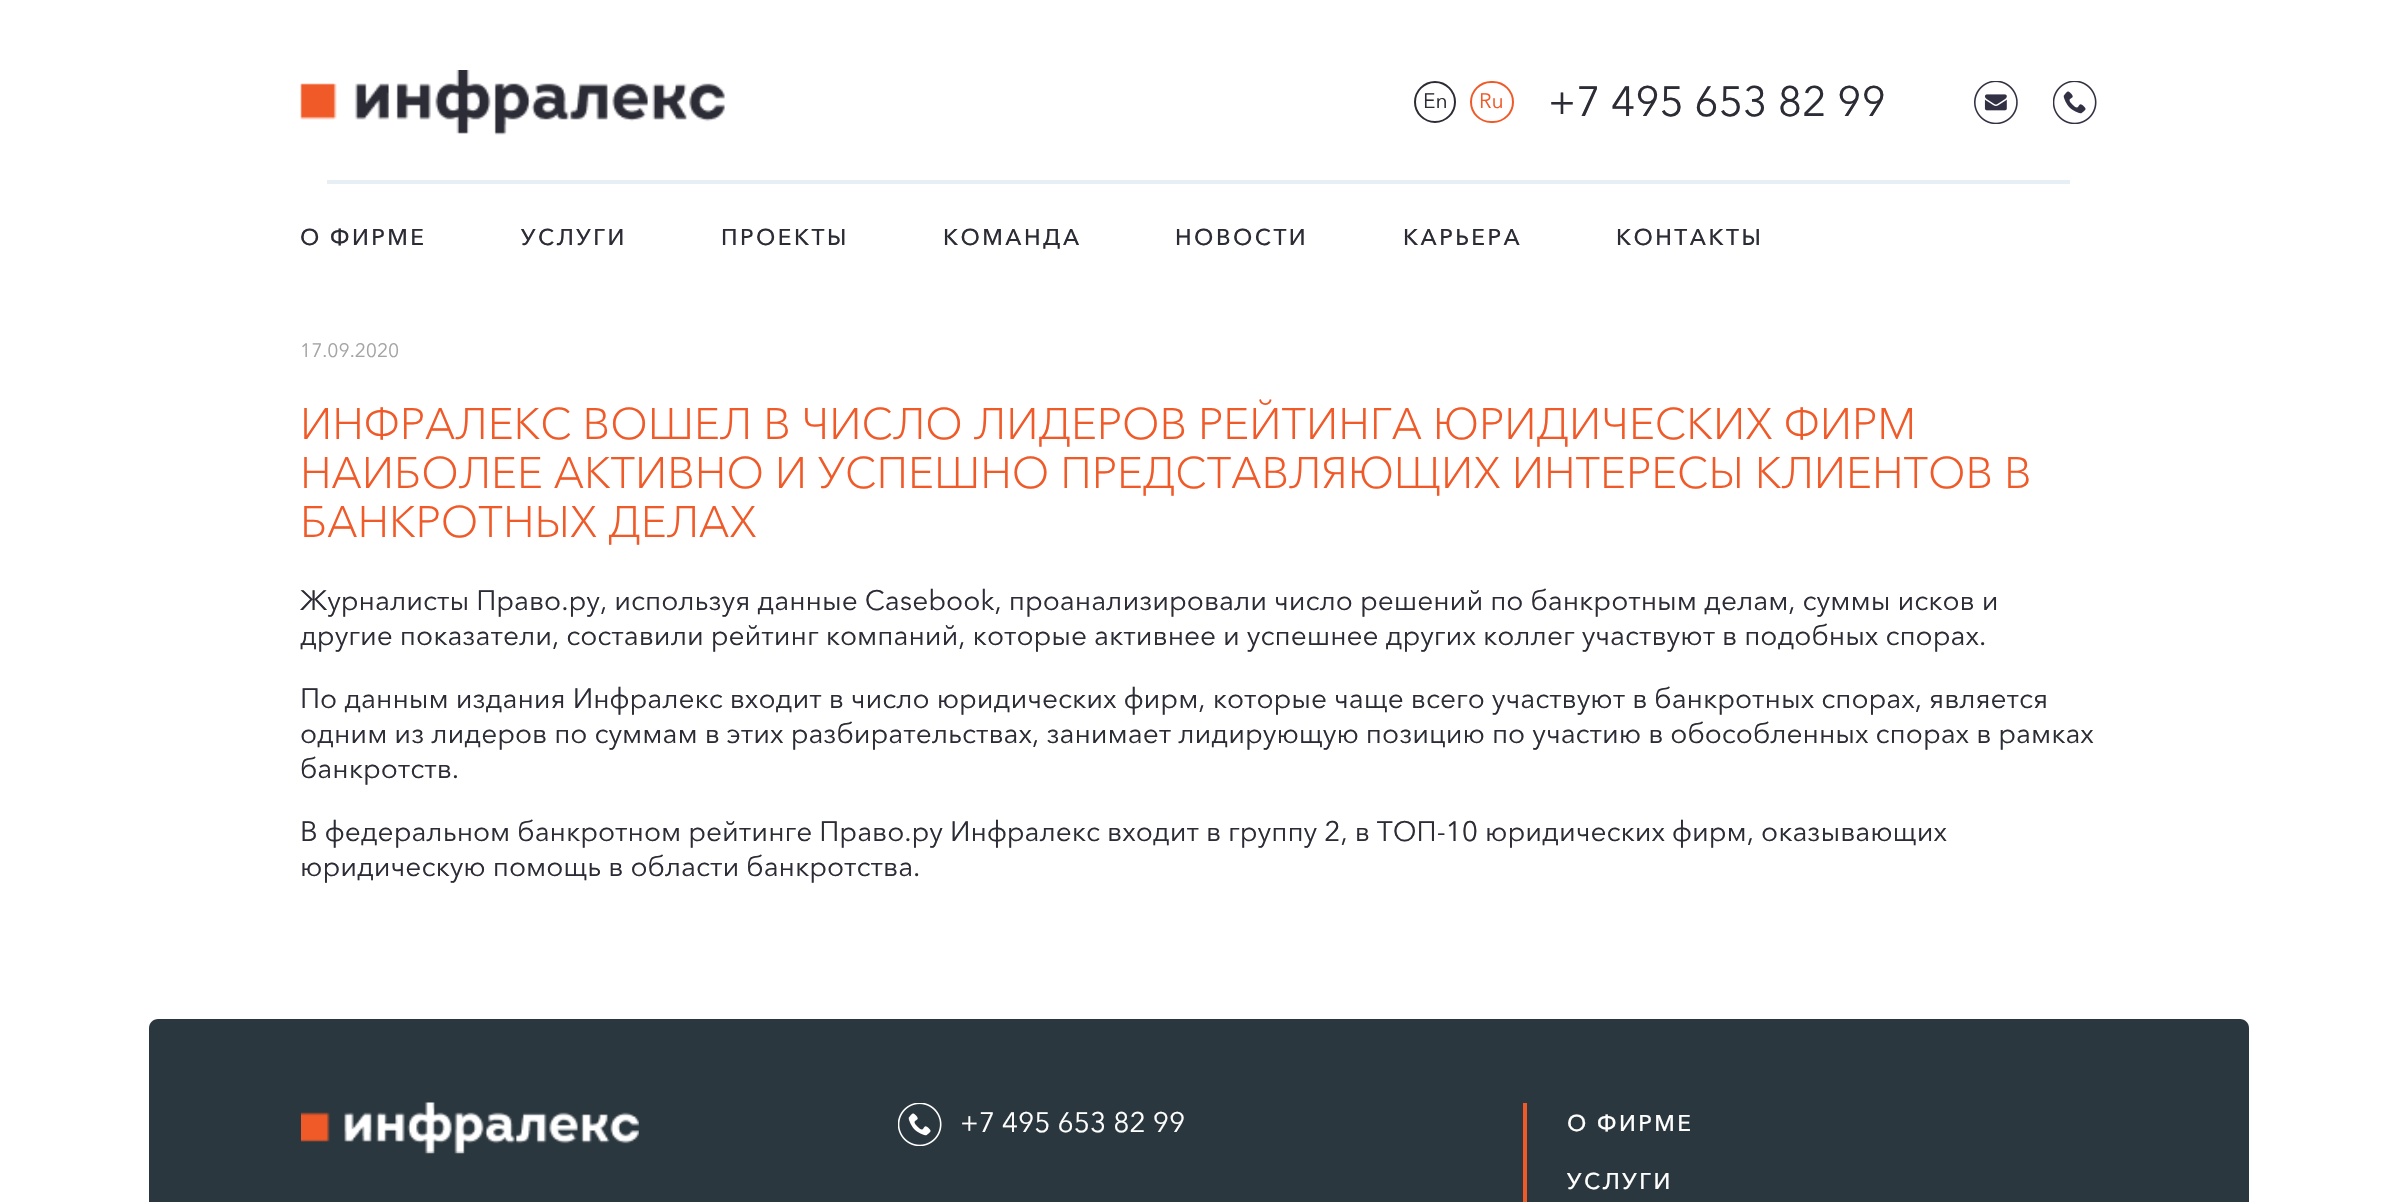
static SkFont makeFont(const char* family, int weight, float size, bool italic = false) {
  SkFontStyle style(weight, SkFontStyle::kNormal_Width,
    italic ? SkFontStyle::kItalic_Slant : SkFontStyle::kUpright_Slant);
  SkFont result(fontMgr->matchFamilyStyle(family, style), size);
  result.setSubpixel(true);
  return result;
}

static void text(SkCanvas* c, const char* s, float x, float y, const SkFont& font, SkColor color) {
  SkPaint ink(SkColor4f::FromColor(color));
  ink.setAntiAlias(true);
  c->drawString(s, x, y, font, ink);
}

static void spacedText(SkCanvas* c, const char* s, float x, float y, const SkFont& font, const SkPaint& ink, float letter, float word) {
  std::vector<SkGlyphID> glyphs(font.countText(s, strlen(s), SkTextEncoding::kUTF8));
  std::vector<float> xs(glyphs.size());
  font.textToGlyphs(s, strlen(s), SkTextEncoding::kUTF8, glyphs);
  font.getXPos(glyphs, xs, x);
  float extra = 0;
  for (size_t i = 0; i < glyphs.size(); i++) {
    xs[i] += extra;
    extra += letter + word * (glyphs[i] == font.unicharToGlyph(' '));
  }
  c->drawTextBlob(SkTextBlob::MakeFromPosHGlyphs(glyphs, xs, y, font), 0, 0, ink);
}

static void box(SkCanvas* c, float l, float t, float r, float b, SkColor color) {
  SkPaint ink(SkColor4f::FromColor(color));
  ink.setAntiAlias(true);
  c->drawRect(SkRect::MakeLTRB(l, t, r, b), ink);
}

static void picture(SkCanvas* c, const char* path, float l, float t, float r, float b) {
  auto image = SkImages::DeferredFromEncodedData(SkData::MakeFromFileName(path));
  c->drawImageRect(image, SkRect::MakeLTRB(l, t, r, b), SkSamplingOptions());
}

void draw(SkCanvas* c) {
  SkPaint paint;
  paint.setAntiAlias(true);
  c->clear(0xffffffff);
  picture(c, "img_01.png", 300, 70, 725, 135);
  paint.setStyle(SkPaint::kStroke_Style);
  paint.setStrokeWidth(2);
  paint.setColor(0xff2c2c36);
  c->drawCircle(1435, 102, 20, paint);
  SkFont face1 = makeFont("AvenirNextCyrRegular", 400, 21);
  text(c, "En", 1423, 108, face1, 0xff2c2c36);
  paint.setColor(0xfff05a28);
  c->drawRoundRect(SkRect::MakeLTRB(1471, 82, 1513, 122), 20, 20, paint);
  text(c, "Ru", 1479, 108, face1, 0xfff05a28);
  SkFont face2 = makeFont("AvenirNextCyrRegular", 400, 42);
  text(c, "+7 495 653 82 99", 1548, 116, face2, 0xff2c2c36);
  picture(c, "img_02.png", 1974, 81, 2018, 124);
  picture(c, "img_03.png", 2053, 81, 2097, 124);
  box(c, 327, 180, 2070, 184, 0xffe7eff5);
  SkFont face3 = makeFont("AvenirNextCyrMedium", 500, 22.75f);
  paint.setStyle(SkPaint::kFill_Style);
  paint.setColor(0xff2c2c36);
  spacedText(c, "О ФИРМЕ", 300, 245, face3, paint, 2.5f, 0);
  spacedText(c, "УСЛУГИ", 521, 245, face3, paint, 2.5f, 0);
  spacedText(c, "ПРОЕКТЫ", 721, 245, face3, paint, 2.5f, 0);
  spacedText(c, "КОМАНДА", 943, 245, face3, paint, 2.5f, 0);
  spacedText(c, "НОВОСТИ", 1175, 245, face3, paint, 2.5f, 0);
  spacedText(c, "КАРЬЕРА", 1403, 245, face3, paint, 2.5f, 0);
  spacedText(c, "КОНТАКТЫ", 1616, 245, face3, paint, 2.5f, 0);
  SkFont face4 = makeFont("AvenirNextCyrRegular", 400, 19.25f);
  text(c, "17.09.2020", 300, 357, face4, 0xffa4a4a4);
  SkFont face5 = makeFont("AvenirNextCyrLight", 300, 43.75f);
  text(c, "ИНФРАЛЕКС ВОШЕЛ В ЧИСЛО ЛИДЕРОВ РЕЙТИНГА ЮРИДИЧЕСКИХ ФИРМ", 300, 439, face5, 0xfff05a28);
  text(c, "НАИБОЛЕЕ АКТИВНО И УСПЕШНО ПРЕДСТАВЛЯЮЩИХ ИНТЕРЕСЫ КЛИЕНТОВ В", 300, 488, face5, 0xfff05a28);
  text(c, "БАНКРОТНЫХ ДЕЛАХ", 300, 537, face5, 0xfff05a28);
  SkFont face6 = makeFont("AvenirNextCyrRegular", 400, 28);
  text(c, "Журналисты Право.ру, используя данные Casebook, проанализировали число решений по банкротным делам, суммы исков и", 300, 610, face6, 0xff2c2c36);
  text(c, "другие показатели, составили рейтинг компаний, которые активнее и успешнее других коллег участвуют в подобных спорах.", 300, 645, face6, 0xff2c2c36);
  text(c, "По данным издания Инфралекс входит в число юридических фирм, которые чаще всего участвуют в банкротных спорах, является", 300, 708, face6, 0xff2c2c36);
  text(c, "одним из лидеров по суммам в этих разбирательствах, занимает лидирующую позицию по участию в обособленных спорах в рамках", 300, 743, face6, 0xff2c2c36);
  text(c, "банкротств.", 300, 778, face6, 0xff2c2c36);
  text(c, "В федеральном банкротном рейтинге Право.ру Инфралекс входит в группу 2, в ТОП-10 юридических фирм, оказывающих", 300, 841, face6, 0xff2c2c36);
  text(c, "юридическую помощь в области банкротства.", 300, 876, face6, 0xff2c2c36);
  paint.setColor(0xff2a373e);
  c->drawPath(SkPathBuilder().moveTo(158, 1019).lineTo(2240, 1019).cubicTo(2245, 1019, 2249, 1023, 2249, 1028).lineTo(2249, 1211).lineTo(149, 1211).lineTo(149, 1028).cubicTo(149, 1023, 153, 1019, 158, 1019).close().detach(), paint);
  picture(c, "img_04.png", 301, 1102, 639, 1154);
  picture(c, "img_05.png", 898, 1103, 942, 1146);
  text(c, "+7 495 653 82 99", 960, 1132, face6, 0xffffffff);
  box(c, 1523, 1103, 1527, 1202, 0xfff05a28);
  paint.setColor(0xffffffff);
  spacedText(c, "О ФИРМЕ", 1567, 1131, face3, paint, 2.5f, 0);
  spacedText(c, "УСЛУГИ", 1567, 1189, face3, paint, 2.5f, 0);
}
